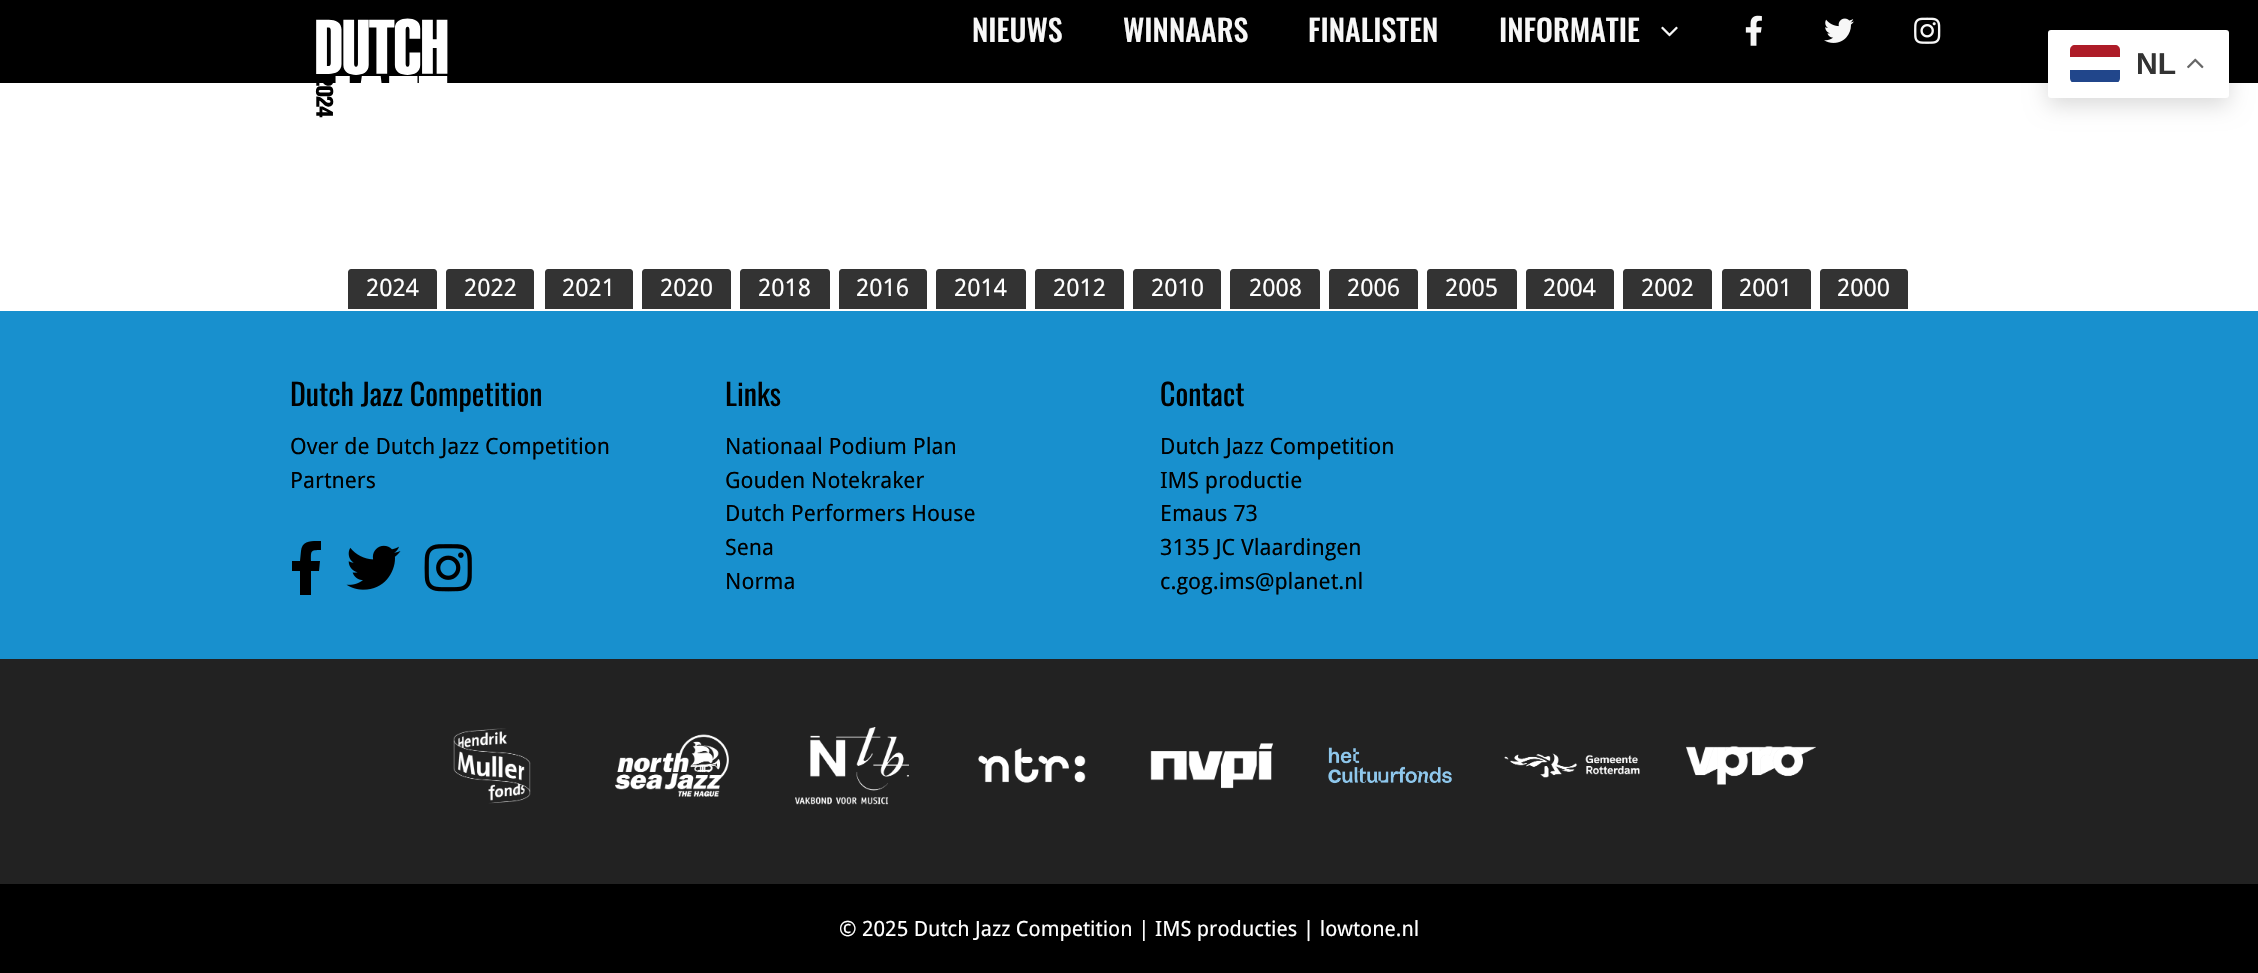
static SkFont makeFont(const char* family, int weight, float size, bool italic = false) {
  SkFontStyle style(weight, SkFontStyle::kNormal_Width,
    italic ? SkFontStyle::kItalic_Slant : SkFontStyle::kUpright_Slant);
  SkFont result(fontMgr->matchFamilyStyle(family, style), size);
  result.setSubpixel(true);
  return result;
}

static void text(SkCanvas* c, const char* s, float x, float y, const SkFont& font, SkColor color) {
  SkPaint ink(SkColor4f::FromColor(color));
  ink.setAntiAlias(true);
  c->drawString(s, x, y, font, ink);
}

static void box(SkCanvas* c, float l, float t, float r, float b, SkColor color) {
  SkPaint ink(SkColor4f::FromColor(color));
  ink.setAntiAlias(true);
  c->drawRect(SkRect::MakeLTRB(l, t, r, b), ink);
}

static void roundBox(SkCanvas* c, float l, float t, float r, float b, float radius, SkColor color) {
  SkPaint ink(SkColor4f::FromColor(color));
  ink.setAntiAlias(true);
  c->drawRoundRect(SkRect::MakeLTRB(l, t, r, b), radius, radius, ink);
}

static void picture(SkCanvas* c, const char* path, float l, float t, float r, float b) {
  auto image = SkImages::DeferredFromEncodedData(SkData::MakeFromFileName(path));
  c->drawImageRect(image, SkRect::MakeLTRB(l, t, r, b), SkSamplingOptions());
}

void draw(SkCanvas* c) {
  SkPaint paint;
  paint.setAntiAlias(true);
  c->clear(0xffffffff);
  box(c, 0, 0, 2258, 83, 0xff000000);
  picture(c, "img_01.png", 315, 18, 448, 118);
  SkFont face1 = makeFont("Oswald", 500, 30);
  text(c, "NIEUWS", 972, 42, face1, 0xfff7f7f7);
  text(c, "WINNAARS", 1123, 42, face1, 0xfff7f7f7);
  text(c, "FINALISTEN", 1308, 42, face1, 0xfff7f7f7);
  text(c, "INFORMATIE", 1499, 42, face1, 0xfff7f7f7);
  picture(c, "img_02.png", 1661, 26, 1678, 37);
  picture(c, "img_03.png", 1745, 15, 1762, 46);
  picture(c, "img_04.png", 1824, 18, 1854, 43);
  picture(c, "img_05.png", 1914, 17, 1941, 44);
  paint.setColor(0x26000000);
  paint.setMaskFilter(SkMaskFilter::MakeBlur(kNormal_SkBlurStyle, 11));
  c->drawRoundRect(SkRect::MakeLTRB(2048, 38, 2229, 105), 3, 3, paint);
  paint.setMaskFilter(nullptr);
  roundBox(c, 2048, 30, 2229, 98, 3, 0xffffffff);
  c->save();
  c->clipPath(SkPathBuilder().moveTo(2075, 45).lineTo(2115, 45).cubicTo(2118, 45, 2120, 47, 2120, 50).lineTo(2120, 78).cubicTo(2120, 81, 2118, 83, 2115, 83).lineTo(2075, 83).cubicTo(2072, 83, 2070, 81, 2070, 78).lineTo(2070, 50).cubicTo(2070, 47, 2072, 45, 2075, 45).close().detach(), true);
  box(c, 2070, 70, 2120, 82, 0xff21468b);
  c->restore();
  paint.setColor(0xffae1c28);
  c->drawPath(SkPathBuilder().moveTo(2075, 45).lineTo(2115, 45).cubicTo(2118, 45, 2120, 47, 2120, 50).lineTo(2120, 57).lineTo(2070, 57).lineTo(2070, 50).cubicTo(2070, 47, 2072, 45, 2075, 45).close().detach(), paint);
  SkFont face2 = makeFont("Liberation Sans", 700, 30);
  text(c, "NL", 2136, 74, face2, 0xff333333);
  picture(c, "img_06.png", 2187, 58, 2204, 69);
  paint.setColor(0xff333333);
  c->drawPath(SkPathBuilder().moveTo(351, 269).lineTo(434, 269).cubicTo(435.5f, 269, 437, 270.5f, 437, 272).lineTo(437, 309).lineTo(348, 309).lineTo(348, 272).cubicTo(348, 270.5f, 349.5f, 269, 351, 269).close().detach(), paint);
  SkFont face3 = makeFont("Droid Sans", 400, 24);
  text(c, "2024", 366, 296, face3, 0xffffffff);
  c->drawPath(SkPathBuilder().moveTo(449, 269).lineTo(531, 269).cubicTo(532.5f, 269, 534, 270.5f, 534, 272).lineTo(534, 309).lineTo(446, 309).lineTo(446, 272).cubicTo(446, 270.5f, 447.5f, 269, 449, 269).close().detach(), paint);
  text(c, "2022", 464, 296, face3, 0xffffffff);
  c->drawPath(SkPathBuilder().moveTo(548, 269).lineTo(630, 269).cubicTo(631.5f, 269, 633, 270.5f, 633, 272).lineTo(633, 309).lineTo(545, 309).lineTo(545, 272).cubicTo(545, 270.5f, 546.5f, 269, 548, 269).close().detach(), paint);
  text(c, "2021", 562, 296, face3, 0xffffffff);
  c->drawPath(SkPathBuilder().moveTo(645, 269).lineTo(728, 269).cubicTo(729.5f, 269, 731, 270.5f, 731, 272).lineTo(731, 309).lineTo(642, 309).lineTo(642, 272).cubicTo(642, 270.5f, 643.5f, 269, 645, 269).close().detach(), paint);
  text(c, "2020", 660, 296, face3, 0xffffffff);
  c->drawPath(SkPathBuilder().moveTo(743, 269).lineTo(827, 269).cubicTo(828.5f, 269, 830, 270.5f, 830, 272).lineTo(830, 309).lineTo(740, 309).lineTo(740, 272).cubicTo(740, 270.5f, 741.5f, 269, 743, 269).close().detach(), paint);
  text(c, "2018", 758, 296, face3, 0xffffffff);
  c->drawPath(SkPathBuilder().moveTo(842, 269).lineTo(924, 269).cubicTo(925.5f, 269, 927, 270.5f, 927, 272).lineTo(927, 309).lineTo(839, 309).lineTo(839, 272).cubicTo(839, 270.5f, 840.5f, 269, 842, 269).close().detach(), paint);
  text(c, "2016", 856, 296, face3, 0xffffffff);
  c->drawPath(SkPathBuilder().moveTo(939, 269).lineTo(1023, 269).cubicTo(1024.5f, 269, 1026, 270.5f, 1026, 272).lineTo(1026, 309).lineTo(936, 309).lineTo(936, 272).cubicTo(936, 270.5f, 937.5f, 269, 939, 269).close().detach(), paint);
  text(c, "2014", 954, 296, face3, 0xffffffff);
  c->drawPath(SkPathBuilder().moveTo(1038, 269).lineTo(1121, 269).cubicTo(1122.5f, 269, 1124, 270.5f, 1124, 272).lineTo(1124, 309).lineTo(1035, 309).lineTo(1035, 272).cubicTo(1035, 270.5f, 1036.5f, 269, 1038, 269).close().detach(), paint);
  text(c, "2012", 1053, 296, face3, 0xffffffff);
  c->drawPath(SkPathBuilder().moveTo(1136, 269).lineTo(1218, 269).cubicTo(1219.5f, 269, 1221, 270.5f, 1221, 272).lineTo(1221, 309).lineTo(1133, 309).lineTo(1133, 272).cubicTo(1133, 270.5f, 1134.5f, 269, 1136, 269).close().detach(), paint);
  text(c, "2010", 1151, 296, face3, 0xffffffff);
  c->drawPath(SkPathBuilder().moveTo(1233, 269).lineTo(1317, 269).cubicTo(1318.5f, 269, 1320, 270.5f, 1320, 272).lineTo(1320, 309).lineTo(1230, 309).lineTo(1230, 272).cubicTo(1230, 270.5f, 1231.5f, 269, 1233, 269).close().detach(), paint);
  text(c, "2008", 1249, 296, face3, 0xffffffff);
  c->drawPath(SkPathBuilder().moveTo(1332, 269).lineTo(1415, 269).cubicTo(1416.5f, 269, 1418, 270.5f, 1418, 272).lineTo(1418, 309).lineTo(1329, 309).lineTo(1329, 272).cubicTo(1329, 270.5f, 1330.5f, 269, 1332, 269).close().detach(), paint);
  text(c, "2006", 1347, 296, face3, 0xffffffff);
  c->drawPath(SkPathBuilder().moveTo(1430, 269).lineTo(1514, 269).cubicTo(1515.5f, 269, 1517, 270.5f, 1517, 272).lineTo(1517, 309).lineTo(1427, 309).lineTo(1427, 272).cubicTo(1427, 270.5f, 1428.5f, 269, 1430, 269).close().detach(), paint);
  text(c, "2005", 1445, 296, face3, 0xffffffff);
  c->drawPath(SkPathBuilder().moveTo(1529, 269).lineTo(1611, 269).cubicTo(1612.5f, 269, 1614, 270.5f, 1614, 272).lineTo(1614, 309).lineTo(1526, 309).lineTo(1526, 272).cubicTo(1526, 270.5f, 1527.5f, 269, 1529, 269).close().detach(), paint);
  text(c, "2004", 1543, 296, face3, 0xffffffff);
  c->drawPath(SkPathBuilder().moveTo(1626, 269).lineTo(1709, 269).cubicTo(1710.5f, 269, 1712, 270.5f, 1712, 272).lineTo(1712, 309).lineTo(1623, 309).lineTo(1623, 272).cubicTo(1623, 270.5f, 1624.5f, 269, 1626, 269).close().detach(), paint);
  text(c, "2002", 1641, 296, face3, 0xffffffff);
  c->drawPath(SkPathBuilder().moveTo(1725, 269).lineTo(1808, 269).cubicTo(1809.5f, 269, 1811, 270.5f, 1811, 272).lineTo(1811, 309).lineTo(1722, 309).lineTo(1722, 272).cubicTo(1722, 270.5f, 1723.5f, 269, 1725, 269).close().detach(), paint);
  text(c, "2001", 1739, 296, face3, 0xffffffff);
  c->drawPath(SkPathBuilder().moveTo(1823, 269).lineTo(1905, 269).cubicTo(1906.5f, 269, 1908, 270.5f, 1908, 272).lineTo(1908, 309).lineTo(1820, 309).lineTo(1820, 272).cubicTo(1820, 270.5f, 1821.5f, 269, 1823, 269).close().detach(), paint);
  text(c, "2000", 1837, 296, face3, 0xffffffff);
  box(c, 0, 311, 2258, 659, 0xff1890ce);
  SkFont face4 = makeFont("Oswald", 400, 30);
  text(c, "Dutch Jazz Competition", 290, 406, face4, 0xff000000);
  SkFont face5 = makeFont("Droid Sans", 400, 22.5f);
  text(c, "Over de Dutch Jazz Competition", 290, 454, face5, 0xff000000);
  text(c, "Partners", 290, 488, face5, 0xff000000);
  paint.setColor(0xff000000);
  c->drawPath(SkPathBuilder().moveTo(319, 571).lineTo(311, 571).lineTo(311, 595).lineTo(300, 595).lineTo(300, 571).lineTo(292, 571).lineTo(292, 561).lineTo(300, 561).lineTo(301, 551).cubicTo(302, 540, 312, 541, 321, 541).lineTo(321, 550).cubicTo(310, 550, 311, 551, 311, 561).lineTo(320, 561).close().detach(), paint);
  picture(c, "img_07.png", 346, 545, 401, 590);
  picture(c, "img_08.png", 424, 544, 472, 592);
  text(c, "Links", 725, 406, face4, 0xff000000);
  text(c, "Nationaal Podium Plan", 725, 454, face5, 0xff000000);
  text(c, "Gouden Notekraker", 725, 488, face5, 0xff000000);
  text(c, "Dutch Performers House", 725, 521, face5, 0xff000000);
  text(c, "Sena", 725, 555, face5, 0xff000000);
  text(c, "Norma", 725, 589, face5, 0xff000000);
  text(c, "Contact", 1160, 406, face4, 0xff000000);
  text(c, "Dutch Jazz Competition", 1160, 454, face5, 0xff000000);
  text(c, "IMS productie", 1160, 488, face5, 0xff000000);
  text(c, "Emaus 73", 1160, 521, face5, 0xff000000);
  text(c, "3135 JC Vlaardingen", 1160, 555, face5, 0xff000000);
  text(c, "c.gog.ims@planet.nl", 1160, 589, face5, 0xff000000);
  box(c, 0, 659, 2258, 884, 0xff222222);
  picture(c, "img_09.png", 453, 728, 531, 804);
  picture(c, "img_10.png", 615, 734, 729, 797);
  picture(c, "img_11.png", 795, 727, 909, 805);
  picture(c, "img_12.png", 978, 748, 1086, 783);
  picture(c, "img_13.png", 1150, 743, 1274, 789);
  picture(c, "img_14.png", 1328, 747, 1452, 784);
  picture(c, "img_15.png", 1504, 753, 1640, 778);
  picture(c, "img_16.png", 1686, 746, 1816, 785);
  box(c, 0, 884, 2258, 973, 0xff000000);
  SkFont face6 = makeFont("Droid Sans", 400, 21);
  text(c, "© 2025 Dutch Jazz Competition | IMS producties | lowtone.nl", 839, 936, face6, 0xffffffff);
}
